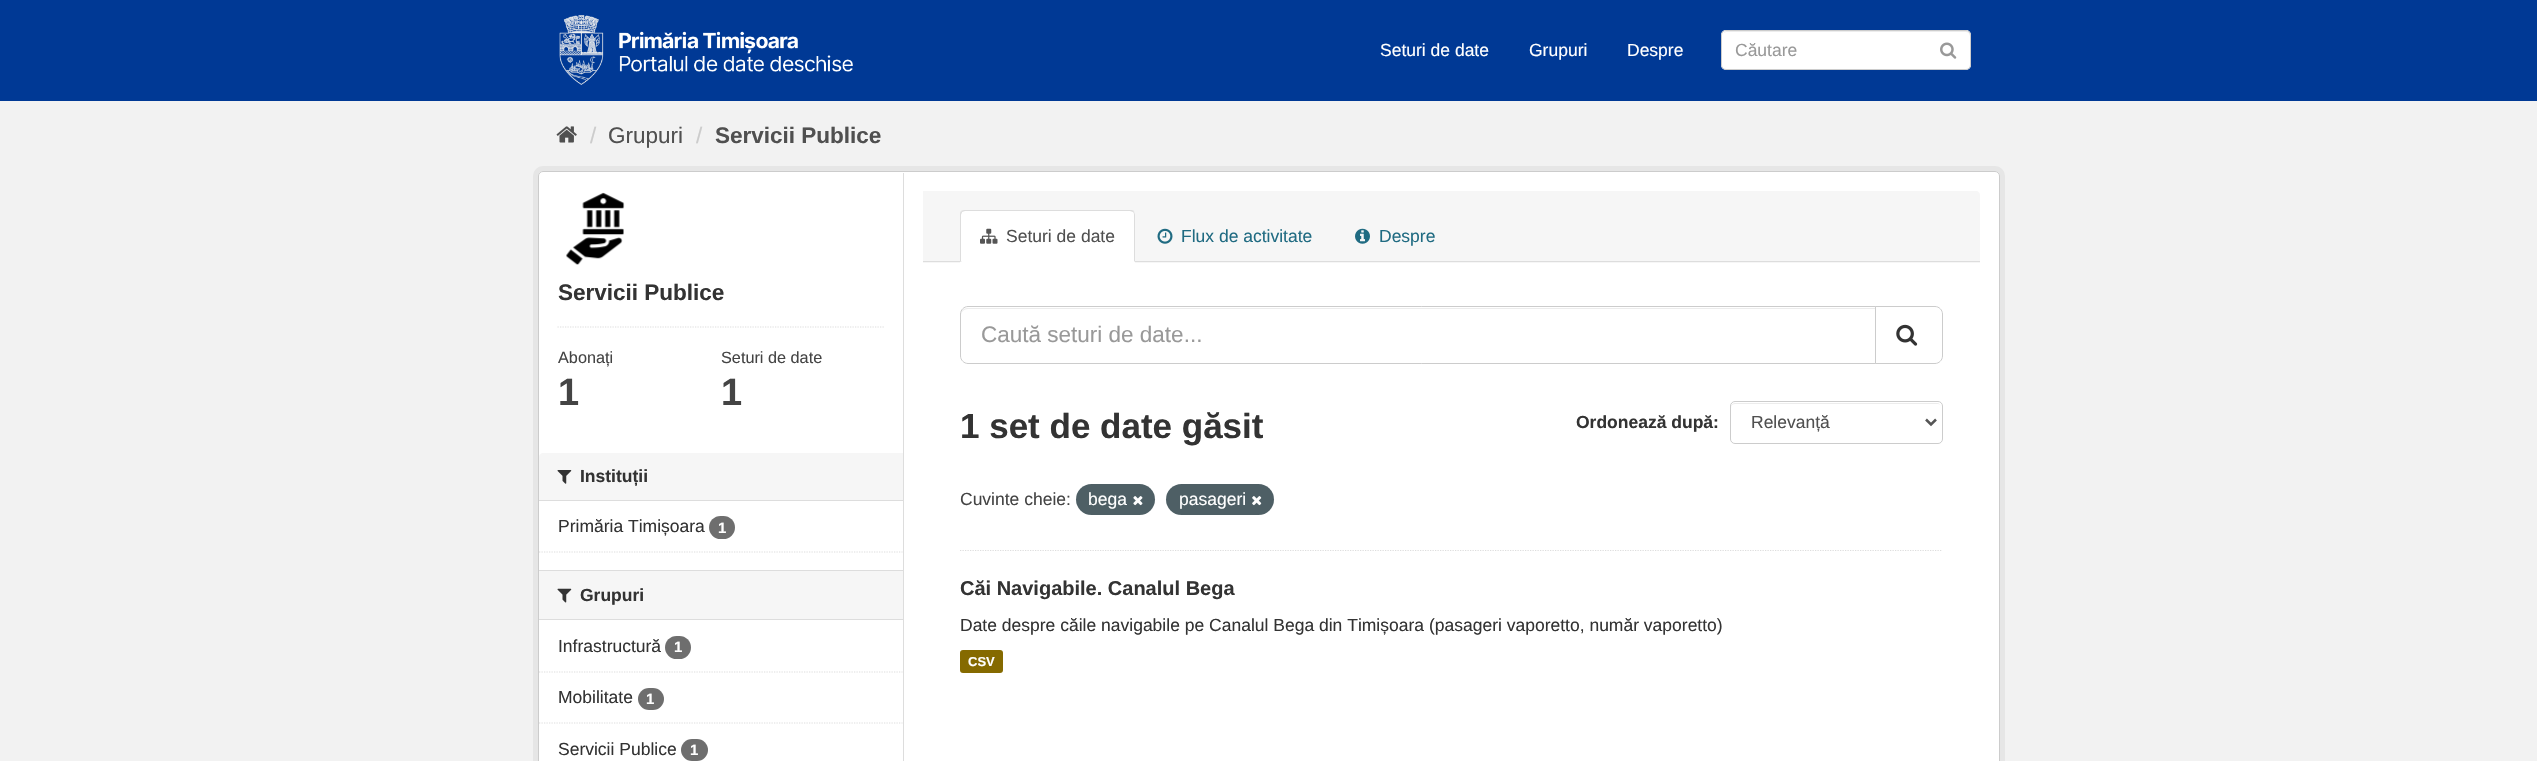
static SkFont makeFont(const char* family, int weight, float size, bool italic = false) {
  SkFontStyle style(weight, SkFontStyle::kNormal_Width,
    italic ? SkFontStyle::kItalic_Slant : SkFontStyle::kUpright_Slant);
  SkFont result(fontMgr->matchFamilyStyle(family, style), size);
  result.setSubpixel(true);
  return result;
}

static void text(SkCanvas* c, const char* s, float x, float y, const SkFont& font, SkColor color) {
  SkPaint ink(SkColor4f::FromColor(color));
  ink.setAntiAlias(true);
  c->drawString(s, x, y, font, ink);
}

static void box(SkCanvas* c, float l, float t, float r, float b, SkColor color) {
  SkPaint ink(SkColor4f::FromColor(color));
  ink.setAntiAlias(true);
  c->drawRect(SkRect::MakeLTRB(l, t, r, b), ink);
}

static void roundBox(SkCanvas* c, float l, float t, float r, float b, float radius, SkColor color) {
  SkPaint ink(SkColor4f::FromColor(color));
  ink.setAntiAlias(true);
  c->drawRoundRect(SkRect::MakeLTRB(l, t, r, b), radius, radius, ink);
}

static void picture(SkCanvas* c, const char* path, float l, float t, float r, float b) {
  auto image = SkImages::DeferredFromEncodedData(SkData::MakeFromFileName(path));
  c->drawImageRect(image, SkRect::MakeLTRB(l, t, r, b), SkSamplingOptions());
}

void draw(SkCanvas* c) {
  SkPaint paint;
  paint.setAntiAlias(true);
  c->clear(0xfff2f2f2);
  box(c, 0, 0, 2537, 101, 0xff003995);
  picture(c, "img_01.png", 559, 15, 853, 85);
  SkFont face1 = makeFont("Liberation Sans", 400, 17.5f);
  text(c, "Seturi de date", 1380, 56, face1, 0xffffffff);
  text(c, "Grupuri", 1529, 56, face1, 0xffffffff);
  text(c, "Despre", 1627, 56, face1, 0xffffffff);
  roundBox(c, 1721, 30, 1971, 70, 5, 0xffffffff);
  paint.setColor(0xffececec);
  c->drawPath(SkPathBuilder().moveTo(1726, 32).lineTo(1966, 32).cubicTo(1968, 32, 1970, 34, 1970, 36).lineTo(1970, 35).cubicTo(1970, 33, 1968, 31, 1966, 31).lineTo(1727, 31).cubicTo(1726, 31, 1724, 32, 1724, 33).close().detach(), paint);
  paint.setStyle(SkPaint::kStroke_Style);
  paint.setStrokeWidth(1);
  paint.setColor(0xffcccccc);
  c->drawRoundRect(SkRect::MakeLTRB(1721.5f, 30.5f, 1970.5f, 69.5f), 4.5f, 4.5f, paint);
  text(c, "Căutare", 1735, 56, face1, 0xff999999);
  picture(c, "img_02.png", 1940, 42, 1957, 59);
  picture(c, "img_03.png", 556, 126, 577, 143);
  SkFont face2 = makeFont("Liberation Sans", 400, 22.5f);
  text(c, "/", 590, 143, face2, 0xffcccccc);
  text(c, "Grupuri", 608, 143, face2, 0xff505050);
  text(c, "/", 696, 143, face2, 0xffcccccc);
  SkFont face3 = makeFont("Liberation Sans", 700, 22.5f);
  text(c, "Servicii Publice", 715, 143, face3, 0xff505050);
  paint.setStrokeWidth(5);
  paint.setColor(0xffe6e6e6);
  c->drawRoundRect(SkRect::MakeLTRB(535.5f, 168.5f, 2002.5f, 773.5f), 7.5f, 7.5f, paint);
  paint.setStyle(SkPaint::kFill_Style);
  paint.setColor(0xffffffff);
  c->drawRoundRect(SkRect::MakeLTRB(538.5f, 171.5f, 1999.5f, 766.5f), 4.5f, 4.5f, paint);
  paint.setStyle(SkPaint::kStroke_Style);
  paint.setStrokeWidth(1);
  paint.setColor(0xffcccccc);
  c->drawRoundRect(SkRect::MakeLTRB(538.5f, 171.5f, 1999.5f, 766.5f), 4.5f, 4.5f, paint);
  picture(c, "img_04.png", 566, 192, 625, 265);
  text(c, "Servicii Publice", 558, 300, face3, 0xff333333);
  paint.setStrokeWidth(1.2f);
  paint.setColor(0xffdddddd);
  paint.setPathEffect(SkDashPathEffect::Make({{1.25f, 1.25f}}, 0));
  c->drawPath(SkPathBuilder().moveTo(557.5f, 327).lineTo(884, 327).detach(), paint);
  paint.setPathEffect(nullptr);
  SkFont face4 = makeFont("Liberation Sans", 400, 16.25f);
  text(c, "Abonați", 558, 363, face4, 0xff444444);
  SkFont face5 = makeFont("Liberation Sans", 700, 38);
  text(c, "1", 558, 405, face5, 0xff444444);
  text(c, "Seturi de date", 721, 363, face4, 0xff444444);
  text(c, "1", 721, 405, face5, 0xff444444);
  paint.setStyle(SkPaint::kFill_Style);
  paint.setColor(0xfff6f6f6);
  c->drawPath(SkPathBuilder().moveTo(543, 453).lineTo(903, 453).lineTo(903, 501).lineTo(539, 501).lineTo(539, 457).cubicTo(539, 455, 541, 453, 543, 453).close().detach(), paint);
  box(c, 539, 500, 903, 501, 0xffdddddd);
  picture(c, "img_05.png", 557, 470, 572, 484);
  SkFont face6 = makeFont("Liberation Sans", 700, 17.5f);
  text(c, "Instituții", 580, 482, face6, 0xff333333);
  text(c, "Primăria Timișoara", 558, 532, face1, 0xff333333);
  roundBox(c, 709, 516, 735, 539, 11.5f, 0xff6e6e6e);
  SkFont face7 = makeFont("Liberation Sans", 700, 15);
  text(c, "1", 718, 533, face7, 0xffffffff);
  paint.setStyle(SkPaint::kStroke_Style);
  paint.setColor(0xffdddddd);
  paint.setPathEffect(SkDashPathEffect::Make({{1.25f, 1.25f}}, 0));
  c->drawPath(SkPathBuilder().moveTo(539, 552).lineTo(902.5f, 552).detach(), paint);
  paint.setPathEffect(nullptr);
  box(c, 539, 571, 903, 619, 0xfff6f6f6);
  box(c, 539, 570, 903, 571, 0xffdddddd);
  box(c, 539, 619, 903, 620, 0xffdddddd);
  picture(c, "img_06.png", 557, 588, 572, 603);
  text(c, "Grupuri", 580, 601, face6, 0xff333333);
  paint.setPathEffect(SkDashPathEffect::Make({{1.25f, 1.25f}}, 0));
  c->drawPath(SkPathBuilder().moveTo(539, 672).lineTo(902.5f, 672).detach(), paint);
  paint.setPathEffect(nullptr);
  text(c, "Infrastructură", 558, 652, face1, 0xff333333);
  roundBox(c, 665, 636, 691, 659, 11.5f, 0xff6e6e6e);
  text(c, "1", 674, 652, face7, 0xffffffff);
  paint.setPathEffect(SkDashPathEffect::Make({{1.25f, 1.25f}}, 0));
  c->drawPath(SkPathBuilder().moveTo(539, 723).lineTo(902.5f, 723).detach(), paint);
  paint.setPathEffect(nullptr);
  text(c, "Mobilitate", 558, 703, face1, 0xff333333);
  roundBox(c, 638, 688, 664, 710, 11, 0xff6e6e6e);
  text(c, "1", 646, 704, face7, 0xffffffff);
  text(c, "Servicii Publice", 558, 755, face1, 0xff333333);
  roundBox(c, 681, 739, 708, 761, 11, 0xff6e6e6e);
  text(c, "1", 690, 755, face7, 0xffffffff);
  box(c, 903, 173, 904, 761, 0xffdddddd);
  paint.setStyle(SkPaint::kFill_Style);
  paint.setColor(0xfff6f6f6);
  c->drawPath(SkPathBuilder().moveTo(923, 191).lineTo(1976, 191).cubicTo(1978, 191, 1980, 193, 1980, 195).lineTo(1980, 263).lineTo(923, 263).close().detach(), paint);
  box(c, 923, 261, 1980, 262, 0xffdddddd);
  paint.setColor(0xffffffff);
  c->drawPath(SkPathBuilder().moveTo(965, 210).lineTo(1130, 210).cubicTo(1133, 210, 1135, 212, 1135, 215).lineTo(1135, 263).lineTo(960, 263).lineTo(960, 215).cubicTo(960, 212, 962, 210, 965, 210).close().detach(), paint);
  paint.setColor(0xffdddddd);
  c->drawPath(SkPathBuilder().moveTo(965, 210).cubicTo(964, 210, 962, 210, 961, 211).lineTo(962, 212).cubicTo(963, 212, 964, 211, 965, 211).lineTo(1130, 211).cubicTo(1131, 211, 1132, 212, 1133, 212).lineTo(1134, 211).cubicTo(1133, 210, 1132, 210, 1130, 210).close().detach(), paint);
  c->drawPath(SkPathBuilder().moveTo(1135, 262).lineTo(1135, 215).cubicTo(1135, 214, 1134, 212, 1134, 211).lineTo(1133, 212).cubicTo(1134, 213, 1134, 214, 1134, 215).lineTo(1134, 261).close().detach(), paint);
  c->drawPath(SkPathBuilder().moveTo(960, 215).lineTo(960, 262).lineTo(962, 261).lineTo(961, 261).lineTo(961, 215).cubicTo(961, 214, 962, 213, 962, 212).lineTo(961, 211).cubicTo(960, 212, 960, 214, 960, 215).close().detach(), paint);
  picture(c, "img_07.png", 980, 228, 998, 244);
  text(c, "Seturi de date", 1006, 242, face1, 0xff505050);
  picture(c, "img_08.png", 1157, 228, 1173, 244);
  text(c, "Flux de activitate", 1181, 242, face1, 0xff206b82);
  picture(c, "img_09.png", 1355, 228, 1370, 244);
  text(c, "Despre", 1379, 242, face1, 0xff206b82);
  paint.setStyle(SkPaint::kStroke_Style);
  paint.setPathEffect(SkDashPathEffect::Make({{1.25f, 1.25f}}, 0));
  c->drawPath(SkPathBuilder().moveTo(960, 550.5f).lineTo(1942.5f, 550.5f).detach(), paint);
  paint.setPathEffect(nullptr);
  paint.setStyle(SkPaint::kFill_Style);
  paint.setColor(0xffececec);
  c->drawPath(SkPathBuilder().moveTo(968, 309).lineTo(1875, 309).lineTo(1875, 308).lineTo(967, 308).cubicTo(964, 308, 961, 311, 961, 314).lineTo(961, 315).cubicTo(961, 312, 964, 309, 968, 309).close().detach(), paint);
  paint.setStyle(SkPaint::kStroke_Style);
  paint.setStrokeWidth(1);
  paint.setColor(0xffcccccc);
  c->drawPath(SkPathBuilder().moveTo(968, 306.5f).lineTo(1875.5f, 306.5f).lineTo(1875.5f, 363.5f).lineTo(968, 363.5f).cubicTo(964, 363.5f, 960.5f, 360, 960.5f, 356).lineTo(960.5f, 314).cubicTo(960.5f, 310, 964, 306.5f, 968, 306.5f).close().detach(), paint);
  text(c, "Caută seturi de date...", 981, 342, face2, 0xff999999);
  paint.setStyle(SkPaint::kFill_Style);
  paint.setColor(0xffffffff);
  c->drawPath(SkPathBuilder().moveTo(1875.5f, 306.5f).lineTo(1935, 306.5f).cubicTo(1939, 306.5f, 1942.5f, 310, 1942.5f, 314).lineTo(1942.5f, 356).cubicTo(1942.5f, 360, 1939, 363.5f, 1935, 363.5f).lineTo(1875.5f, 363.5f).close().detach(), paint);
  paint.setStyle(SkPaint::kStroke_Style);
  paint.setColor(0xffcccccc);
  c->drawPath(SkPathBuilder().moveTo(1875.5f, 306.5f).lineTo(1935, 306.5f).cubicTo(1939, 306.5f, 1942.5f, 310, 1942.5f, 314).lineTo(1942.5f, 356).cubicTo(1942.5f, 360, 1939, 363.5f, 1935, 363.5f).lineTo(1875.5f, 363.5f).close().detach(), paint);
  picture(c, "img_10.png", 1896, 324, 1918, 346);
  SkFont face8 = makeFont("Liberation Sans", 700, 35);
  text(c, "1 set de date găsit", 960, 438, face8, 0xff333333);
  text(c, "Ordonează după:", 1576, 428, face6, 0xff333333);
  paint.setStyle(SkPaint::kFill_Style);
  paint.setColor(0xffececec);
  c->drawPath(SkPathBuilder().moveTo(1735, 404).lineTo(1938, 404).cubicTo(1940, 404, 1941, 405, 1941, 408).lineTo(1941, 407).cubicTo(1941, 405, 1939, 403, 1937, 403).lineTo(1735, 403).cubicTo(1733, 403, 1731, 405, 1731, 407).lineTo(1731, 408).cubicTo(1731, 405, 1733, 404, 1735, 404).close().detach(), paint);
  paint.setStyle(SkPaint::kStroke_Style);
  paint.setColor(0xffcccccc);
  c->drawRoundRect(SkRect::MakeLTRB(1730.5f, 401.5f, 1942.5f, 443.5f), 4.5f, 4.5f, paint);
  paint.setStrokeWidth(2.5f);
  paint.setColor(0xff555555);
  c->drawPath(SkPathBuilder().moveTo(1926, 419.5f).lineTo(1931, 424.5f).lineTo(1936, 419.5f).detach(), paint);
  text(c, "Relevanță", 1751, 428, face1, 0xff505050);
  text(c, "Cuvinte cheie:", 960, 505, face1, 0xff444444);
  roundBox(c, 1076, 484, 1155, 515, 15.5f, 0xff4e5f65);
  text(c, "bega", 1088, 505, face1, 0xffffffff);
  picture(c, "img_11.png", 1133, 496, 1143, 506);
  roundBox(c, 1166, 484, 1274, 515, 15.5f, 0xff4e5f65);
  text(c, "pasageri", 1179, 505, face1, 0xffffffff);
  picture(c, "img_12.png", 1252, 496, 1262, 506);
  SkFont face9 = makeFont("Liberation Sans", 700, 20);
  text(c, "Căi Navigabile. Canalul Bega", 960, 595, face9, 0xff333333);
  text(c, "Date despre căile navigabile pe Canalul Bega din Timișoara (pasageri vaporetto, număr vaporetto)", 960, 631, face1, 0xff333333);
  roundBox(c, 960, 650, 1003, 673, 3, 0xff856a00);
  SkFont face10 = makeFont("Liberation Sans", 700, 13);
  text(c, "CSV", 968, 666, face10, 0xffffffff);
}
